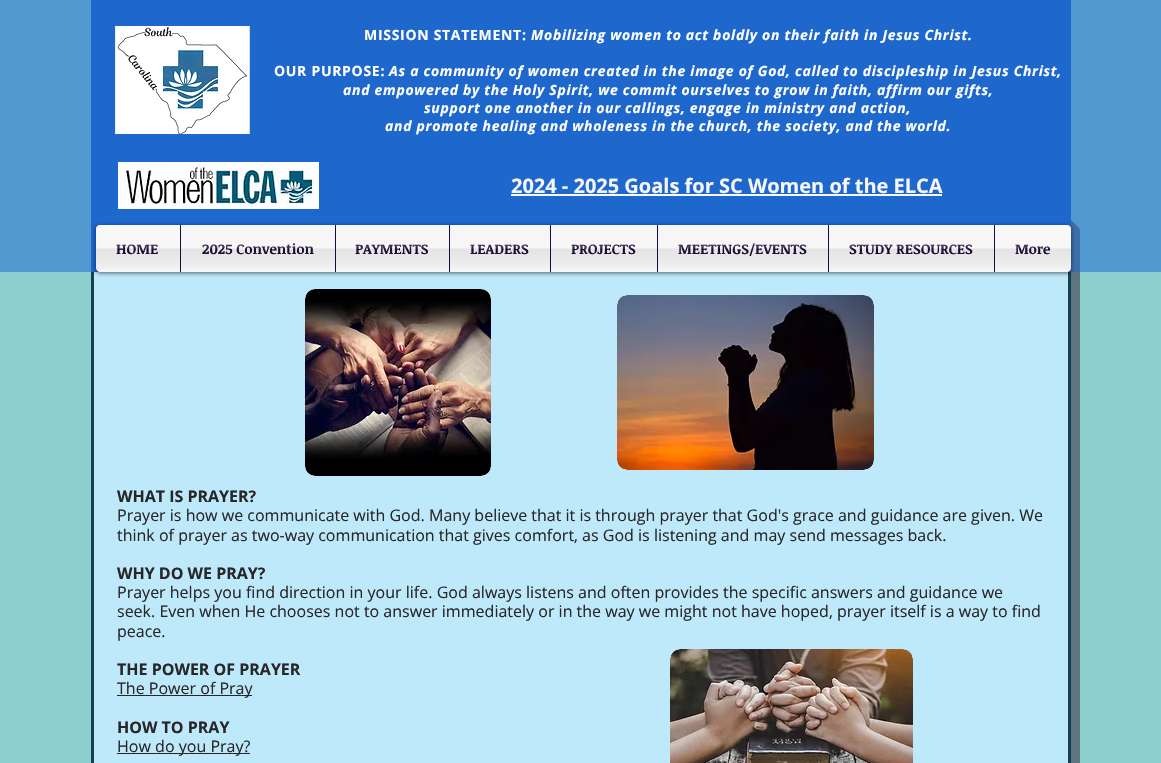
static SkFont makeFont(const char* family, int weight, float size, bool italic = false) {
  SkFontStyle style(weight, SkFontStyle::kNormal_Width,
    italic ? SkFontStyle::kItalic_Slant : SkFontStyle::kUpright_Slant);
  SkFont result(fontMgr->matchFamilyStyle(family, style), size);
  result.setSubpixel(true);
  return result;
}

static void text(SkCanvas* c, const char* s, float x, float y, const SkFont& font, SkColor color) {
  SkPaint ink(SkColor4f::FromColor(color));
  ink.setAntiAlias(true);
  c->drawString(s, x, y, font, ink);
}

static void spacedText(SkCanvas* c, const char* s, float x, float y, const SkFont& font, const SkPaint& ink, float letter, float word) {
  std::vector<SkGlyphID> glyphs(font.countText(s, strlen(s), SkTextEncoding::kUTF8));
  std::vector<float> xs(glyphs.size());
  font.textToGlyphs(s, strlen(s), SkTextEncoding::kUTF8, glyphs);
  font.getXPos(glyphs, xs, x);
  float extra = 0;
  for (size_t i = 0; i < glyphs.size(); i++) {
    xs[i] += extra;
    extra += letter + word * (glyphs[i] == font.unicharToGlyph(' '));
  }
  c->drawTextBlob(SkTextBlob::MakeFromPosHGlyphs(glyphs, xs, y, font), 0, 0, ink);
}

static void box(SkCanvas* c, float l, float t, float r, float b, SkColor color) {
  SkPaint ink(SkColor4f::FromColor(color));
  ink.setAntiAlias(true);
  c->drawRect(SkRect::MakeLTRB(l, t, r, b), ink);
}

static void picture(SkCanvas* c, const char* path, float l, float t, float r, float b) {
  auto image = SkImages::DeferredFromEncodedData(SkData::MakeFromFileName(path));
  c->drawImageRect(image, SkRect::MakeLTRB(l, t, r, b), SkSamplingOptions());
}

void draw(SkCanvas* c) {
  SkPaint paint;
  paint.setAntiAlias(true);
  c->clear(0xff8bd0cd);
  paint.setColor(0xff5f757e);
  c->drawPath(SkPathBuilder().moveTo(100, 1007).lineTo(100, 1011).cubicTo(100, 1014, 102, 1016, 105, 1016).lineTo(1075, 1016).cubicTo(1078, 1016, 1080, 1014, 1080, 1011).lineTo(1080, 231).cubicTo(1080, 228, 1078, 226, 1075, 226).lineTo(1071, 226).lineTo(1071, 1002).cubicTo(1071, 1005, 1069, 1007, 1066, 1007).close().detach(), paint);
  c->drawPath(SkPathBuilder().moveTo(98, 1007).lineTo(98, 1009).cubicTo(98, 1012, 100, 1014, 103, 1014).lineTo(1073, 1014).cubicTo(1076, 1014, 1078, 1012, 1078, 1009).lineTo(1078, 229).cubicTo(1078, 226, 1076, 224, 1073, 224).lineTo(1071, 224).lineTo(1071, 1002).cubicTo(1071, 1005, 1069, 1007, 1066, 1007).close().detach(), paint);
  c->drawPath(SkPathBuilder().moveTo(96, 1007).cubicTo(96, 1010, 98, 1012, 101, 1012).lineTo(1071, 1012).cubicTo(1074, 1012, 1076, 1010, 1076, 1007).lineTo(1076, 227).cubicTo(1076, 224, 1074, 222, 1071, 222).lineTo(1071, 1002).cubicTo(1071, 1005, 1069, 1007, 1066, 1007).close().detach(), paint);
  c->drawPath(SkPathBuilder().moveTo(94, 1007).cubicTo(95, 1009, 97, 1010, 99, 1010).lineTo(1069, 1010).cubicTo(1072, 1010, 1074, 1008, 1074, 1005).lineTo(1074, 225).cubicTo(1074, 223, 1073, 221, 1071, 220).lineTo(1071, 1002).cubicTo(1071, 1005, 1069, 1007, 1066, 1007).close().detach(), paint);
  c->drawPath(SkPathBuilder().moveTo(93, 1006).cubicTo(94, 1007, 95, 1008, 97, 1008).lineTo(1067, 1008).cubicTo(1070, 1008, 1072, 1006, 1072, 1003).lineTo(1072, 223).cubicTo(1072, 221, 1071, 220, 1070, 219).cubicTo(1071, 220, 1071, 221, 1071, 222).lineTo(1071, 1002).cubicTo(1071, 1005, 1069, 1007, 1066, 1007).lineTo(96, 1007).cubicTo(95, 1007, 94, 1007, 93, 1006).close().detach(), paint);
  box(c, 0, 0, 1161, 272, 0x871d67cd);
  box(c, 91, 0, 1071, 272, 0xff1d67cd);
  picture(c, "img_01.png", 115, 26, 250, 134);
  SkFont face1 = makeFont("Open Sans", 700, 14);
  paint.setColor(0xffffffff);
  spacedText(c, "MISSION STATEMENT:", 364, 40, face1, paint, 0.7f, 0);
  SkFont face2 = makeFont("Open Sans", 700, 14, true);
  spacedText(c, "Mobilizing women to act boldly on their faith in Jesus Christ.", 531, 40, face2, paint, 0.7f, 0);
  spacedText(c, "OUR PURPOSE:", 274, 76, face1, paint, 0.7f, 0);
  spacedText(c, "As a community of women created in the image of God, called to discipleship in Jesus Christ,", 389, 76, face2, paint, 0.7f, 0);
  spacedText(c, "and empowered by the Holy Spirit, we commit ourselves to grow in faith, affirm our gifts,", 343, 95, face2, paint, 0.7f, 0);
  spacedText(c, "support one another in our callings, engage in ministry and action,", 424, 113, face2, paint, 0.7f, 0);
  spacedText(c, "and promote healing and wholeness in the church, the society, and the world.", 385, 131, face2, paint, 0.7f, 0);
  picture(c, "img_02.png", 118, 162, 319, 209);
  SkFont face3 = makeFont("Open Sans", 700, 20);
  text(c, "2024 - 2025 Goals for SC Women of the ELCA", 511, 193, face3, 0xfff6f6f6);
  box(c, 511, 194, 942, 196, 0xfff6f6f6);
  box(c, 91, 272, 1071, 763, 0xff154051);
  box(c, 94, 272, 1068, 763, 0xffbde9fb);
  paint.setColor(0x99000000);
  paint.setMaskFilter(SkMaskFilter::MakeBlur(kNormal_SkBlurStyle, 2));
  c->drawRoundRect(SkRect::MakeLTRB(96, 226, 1071, 273), 4, 4, paint);
  paint.setMaskFilter(nullptr);
  picture(c, "img_03.png", 96, 225, 1071, 229);
  paint.setColor(0xfff6f6f6);
  c->drawPath(SkPathBuilder().moveTo(100, 225).lineTo(180, 225).lineTo(180, 272).lineTo(100, 272).cubicTo(98, 272, 96, 270, 96, 268).lineTo(96, 229).cubicTo(96, 227, 98, 225, 100, 225).close().detach(), paint);
  SkFont face4 = makeFont("Noticia Text", 700, 14);
  text(c, "HOME", 116, 254, face4, 0xff1f0a38);
  picture(c, "img_04.png", 96, 225, 180, 269);
  box(c, 181, 225, 335, 272, 0xfff6f6f6);
  box(c, 180, 225, 181, 272, 0xff1f0a38);
  text(c, "2025 Convention", 202, 254, face4, 0xff1f0a38);
  picture(c, "img_05.png", 181, 243, 335, 269);
  box(c, 336, 225, 449, 272, 0xfff6f6f6);
  box(c, 335, 225, 336, 272, 0xff1f0a38);
  text(c, "PAYMENTS", 355, 254, face4, 0xff1f0a38);
  picture(c, "img_06.png", 336, 244, 449, 269);
  box(c, 450, 225, 550, 272, 0xfff6f6f6);
  box(c, 449, 225, 450, 272, 0xff1f0a38);
  text(c, "LEADERS", 470, 254, face4, 0xff1f0a38);
  picture(c, "img_07.png", 450, 244, 550, 269);
  box(c, 551, 225, 657, 272, 0xfff6f6f6);
  box(c, 550, 225, 551, 272, 0xff1f0a38);
  text(c, "PROJECTS", 571, 254, face4, 0xff1f0a38);
  picture(c, "img_08.png", 551, 244, 657, 269);
  box(c, 658, 225, 828, 272, 0xfff6f6f6);
  box(c, 657, 225, 658, 272, 0xff1f0a38);
  text(c, "MEETINGS/EVENTS", 678, 254, face4, 0xff1f0a38);
  picture(c, "img_09.png", 658, 243, 828, 269);
  box(c, 829, 225, 994, 272, 0xfff6f6f6);
  box(c, 828, 225, 829, 272, 0xff1f0a38);
  text(c, "STUDY RESOURCES", 849, 254, face4, 0xff1f0a38);
  picture(c, "img_10.png", 829, 244, 994, 269);
  c->drawPath(SkPathBuilder().moveTo(994, 225).lineTo(1067, 225).cubicTo(1069, 225, 1071, 227, 1071, 229).lineTo(1071, 268).cubicTo(1071, 270, 1069, 272, 1067, 272).lineTo(994, 272).close().detach(), paint);
  box(c, 994, 225, 995, 272, 0xff1f0a38);
  text(c, "More", 1015, 254, face4, 0xff1f0a38);
  picture(c, "img_11.png", 995, 225, 1071, 269);
  picture(c, "img_12.png", 305, 289, 491, 476);
  picture(c, "img_13.png", 617, 295, 874, 470);
  SkFont face5 = makeFont("Open Sans", 700, 16);
  text(c, "WHAT IS PRAYER?", 117, 502, face5, 0xff282626);
  SkFont face6 = makeFont("Open Sans", 400, 16);
  text(c, "Prayer is how we communicate with God. Many believe that it is through prayer that God's grace and guidance are given. We", 117, 521, face6, 0xff282626);
  text(c, "think of prayer as two-way communication that gives comfort, as God is listening and may send messages back.", 117, 541, face6, 0xff282626);
  text(c, "WHY DO WE PRAY?", 117, 579, face5, 0xff282626);
  text(c, "Prayer helps you find direction in your life. God always listens and often provides the specific answers and guidance we", 117, 598, face6, 0xff282626);
  text(c, "seek. Even when He chooses not to answer immediately or in the way we might not have hoped, prayer itself is a way to find", 117, 617, face6, 0xff282626);
  text(c, "peace.", 117, 637, face6, 0xff282626);
  text(c, "THE POWER OF PRAYER", 117, 675, face5, 0xff282626);
  box(c, 117, 695, 252, 696, 0xff282626);
  text(c, "The Power of Pray", 117, 694, face6, 0xff282626);
  text(c, "HOW TO PRAY", 117, 733, face5, 0xff282626);
  box(c, 117, 753, 250, 754, 0xff282626);
  text(c, "How do you Pray?", 117, 752, face6, 0xff282626);
  picture(c, "img_14.png", 670, 649, 913, 763);
}
